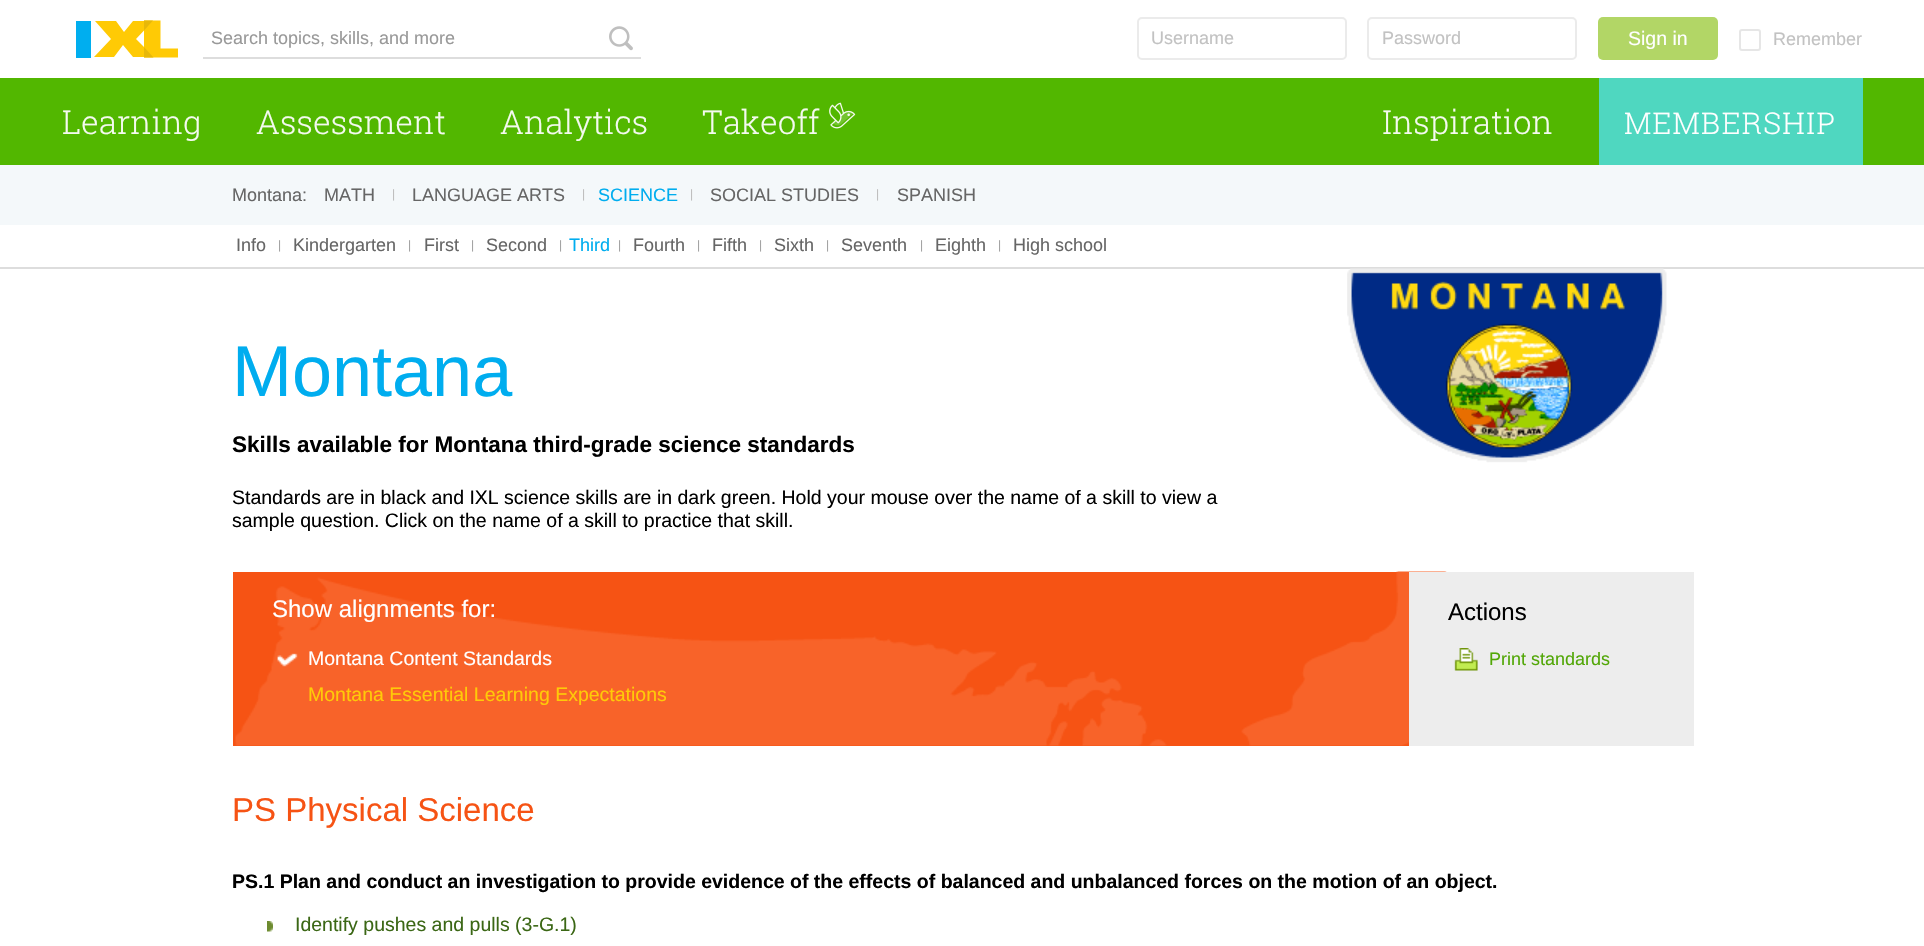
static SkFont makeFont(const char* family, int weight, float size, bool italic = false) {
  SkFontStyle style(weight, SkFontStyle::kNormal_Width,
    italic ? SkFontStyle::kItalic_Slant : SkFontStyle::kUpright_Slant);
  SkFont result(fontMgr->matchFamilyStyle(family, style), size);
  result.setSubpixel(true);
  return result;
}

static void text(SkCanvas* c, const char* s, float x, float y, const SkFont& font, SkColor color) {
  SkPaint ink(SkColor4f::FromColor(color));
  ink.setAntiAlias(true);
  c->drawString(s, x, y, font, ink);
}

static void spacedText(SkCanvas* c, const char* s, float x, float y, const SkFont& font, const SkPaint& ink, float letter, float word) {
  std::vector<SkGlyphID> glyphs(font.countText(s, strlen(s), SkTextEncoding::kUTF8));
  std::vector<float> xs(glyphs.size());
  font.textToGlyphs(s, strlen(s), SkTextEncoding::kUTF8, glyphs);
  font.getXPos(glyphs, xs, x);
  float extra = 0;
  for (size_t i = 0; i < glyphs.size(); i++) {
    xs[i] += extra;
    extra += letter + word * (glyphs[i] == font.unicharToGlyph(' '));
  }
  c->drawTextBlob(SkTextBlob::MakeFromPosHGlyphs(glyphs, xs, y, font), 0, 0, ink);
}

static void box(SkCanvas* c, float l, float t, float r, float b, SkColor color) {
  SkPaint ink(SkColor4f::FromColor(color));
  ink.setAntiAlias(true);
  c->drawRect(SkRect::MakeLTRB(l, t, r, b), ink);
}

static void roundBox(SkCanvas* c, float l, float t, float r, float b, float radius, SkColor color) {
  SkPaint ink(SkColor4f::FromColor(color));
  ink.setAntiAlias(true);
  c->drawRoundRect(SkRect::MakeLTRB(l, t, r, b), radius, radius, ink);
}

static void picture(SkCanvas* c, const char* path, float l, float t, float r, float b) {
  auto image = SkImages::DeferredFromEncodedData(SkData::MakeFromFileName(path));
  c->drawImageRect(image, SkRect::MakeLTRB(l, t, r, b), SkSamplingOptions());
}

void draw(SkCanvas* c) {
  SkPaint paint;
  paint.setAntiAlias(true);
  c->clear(0xffffffff);
  paint.setColor(0xffffca05);
  c->drawPath(SkPathBuilder(SkPathFillType::kEvenOdd).moveTo(144, 57.5f).lineTo(178, 57.5f).lineTo(178, 48.5f).lineTo(160.5f, 48.5f).lineTo(160.5f, 20.5f).lineTo(144, 20.5f).close().detach(), paint);
  c->drawPath(SkPathBuilder(SkPathFillType::kEvenOdd).moveTo(94, 57).lineTo(114, 57).lineTo(123, 45).lineTo(133, 57).lineTo(154, 57).lineTo(136, 39).lineTo(153, 21).lineTo(133, 21).lineTo(124, 32).lineTo(116, 21).lineTo(95, 21).lineTo(111, 39).close().detach(), paint);
  paint.setColor(0xffe7b809);
  c->drawPath(SkPathBuilder(SkPathFillType::kEvenOdd).moveTo(144, 57.5f).lineTo(153.5f, 57.5f).lineTo(144, 47).close().moveTo(153, 20.5f).lineTo(144, 20.5f).lineTo(144, 30.5f).close().detach(), paint);
  box(c, 76, 21, 91, 58, 0xff00aeef);
  box(c, 203, 57, 641, 59, 0xffdddddd);
  SkFont face1 = makeFont("Liberation Sans", 400, 18);
  text(c, "Search topics, skills, and more", 211, 44, face1, 0xff999999);
  picture(c, "img_01.png", 609, 26, 633, 51);
  paint.setStyle(SkPaint::kStroke_Style);
  paint.setStrokeWidth(2);
  paint.setColor(0xffebebeb);
  c->drawRoundRect(SkRect::MakeLTRB(1138, 18, 1346, 59), 4, 4, paint);
  text(c, "Username", 1151, 44, face1, 0xffc2c2c2);
  c->drawRoundRect(SkRect::MakeLTRB(1368, 18, 1576, 59), 4, 4, paint);
  text(c, "Password", 1382, 44, face1, 0xffc2c2c2);
  roundBox(c, 1598, 17, 1718, 60, 5, 0xffb2d666);
  SkFont face2 = makeFont("Liberation Sans", 400, 19.5f);
  text(c, "Sign in", 1628, 45, face2, 0xffffffff);
  paint.setColor(0xffe6e6e6);
  c->drawRoundRect(SkRect::MakeLTRB(1740, 30, 1760, 50), 2, 2, paint);
  text(c, "Remember", 1773, 45, face1, 0xffc2c2c2);
  box(c, 0, 78, 1924, 165, 0xff52b700);
  SkFont face3 = makeFont("Roboto Slab", 300, 33);
  text(c, "Learning", 62, 134, face3, 0xfff4faef);
  text(c, "Assessment", 256, 134, face3, 0xfff4faef);
  text(c, "Analytics", 500, 134, face3, 0xfff4faef);
  text(c, "Takeoff", 702, 134, face3, 0xfff4faef);
  picture(c, "img_02.png", 829, 102, 856, 129);
  text(c, "Inspiration", 1382, 134, face3, 0xfff4faef);
  box(c, 1599, 78, 1863, 165, 0xff4fd7c0);
  SkFont face4 = makeFont("Roboto Slab", 300, 30);
  paint.setStyle(SkPaint::kFill_Style);
  paint.setColor(0xffffffff);
  spacedText(c, "MEMBERSHIP", 1624, 134, face4, paint, 1.25f, 0);
  box(c, 0, 165, 1924, 225, 0xfff4f8fa);
  text(c, "Montana:", 232, 201, face1, 0xff666666);
  text(c, "MATH", 324, 201, face1, 0xff666666);
  SkFont face5 = makeFont("Liberation Sans", 400, 12);
  text(c, "|", 392, 198, face5, 0xffbcbcbc);
  text(c, "LANGUAGE ARTS", 412, 201, face1, 0xff666666);
  text(c, "|", 582, 198, face5, 0xffbcbcbc);
  text(c, "SCIENCE", 598, 201, face1, 0xff00adef);
  text(c, "|", 690, 198, face5, 0xffbcbcbc);
  text(c, "SOCIAL STUDIES", 710, 201, face1, 0xff666666);
  text(c, "|", 876, 198, face5, 0xffbcbcbc);
  text(c, "SPANISH", 897, 201, face1, 0xff666666);
  box(c, 0, 267, 1924, 269, 0xffdddddd);
  text(c, "Info", 236, 251, face1, 0xff666666);
  text(c, "|", 278, 249, face5, 0xff9f9f9f);
  text(c, "Kindergarten", 293, 251, face1, 0xff666666);
  text(c, "|", 408, 249, face5, 0xff9f9f9f);
  text(c, "First", 424, 251, face1, 0xff666666);
  text(c, "|", 471, 249, face5, 0xff9f9f9f);
  text(c, "Second", 486, 251, face1, 0xff666666);
  text(c, "|", 559, 249, face5, 0xff9f9f9f);
  text(c, "Third", 569, 251, face1, 0xff00adef);
  text(c, "|", 618, 249, face5, 0xff9f9f9f);
  text(c, "Fourth", 633, 251, face1, 0xff666666);
  text(c, "|", 697, 249, face5, 0xff9f9f9f);
  text(c, "Fifth", 712, 251, face1, 0xff666666);
  text(c, "|", 759, 249, face5, 0xff9f9f9f);
  text(c, "Sixth", 774, 251, face1, 0xff666666);
  text(c, "|", 826, 249, face5, 0xff9f9f9f);
  text(c, "Seventh", 841, 251, face1, 0xff666666);
  text(c, "|", 920, 249, face5, 0xff9f9f9f);
  text(c, "Eighth", 935, 251, face1, 0xff666666);
  text(c, "|", 998, 249, face5, 0xff9f9f9f);
  text(c, "High school", 1013, 251, face1, 0xff666666);
  SkFont face6 = makeFont("Liberation Sans", 400, 72);
  text(c, "Montana", 232, 396, face6, 0xff00adef);
  picture(c, "img_03.png", 1347, 268, 1667, 463);
  SkFont face7 = makeFont("Liberation Sans", 700, 22.5f);
  text(c, "Skills available for Montana third-grade science standards", 232, 452, face7, 0xff000000);
  text(c, "Standards are in black and IXL science skills are in dark green. Hold your mouse over the name of a skill to view a", 232, 504, face2, 0xff000000);
  text(c, "sample question. Click on the name of a skill to practice that skill.", 232, 527, face2, 0xff000000);
  box(c, 233, 572, 1409, 746, 0xfff65314);
  picture(c, "img_04.png", 235, 571, 1447, 746);
  SkFont face8 = makeFont("Liberation Sans", 400, 24);
  text(c, "Show alignments for:", 272, 617, face8, 0xffffffff);
  picture(c, "img_05.png", 277, 653, 298, 667);
  text(c, "Montana Content Standards", 308, 665, face2, 0xffffffff);
  text(c, "Montana Essential Learning Expectations", 308, 701, face2, 0xffffca08);
  box(c, 1409, 572, 1694, 746, 0xffededed);
  text(c, "Actions", 1448, 620, face8, 0xff000000);
  picture(c, "img_06.png", 1454, 648, 1478, 671);
  text(c, "Print standards", 1489, 665, face1, 0xff52a707);
  SkFont face9 = makeFont("Liberation Sans", 400, 33);
  text(c, "PS Physical Science", 232, 821, face9, 0xfff65314);
  SkFont face10 = makeFont("Liberation Sans", 700, 19.5f);
  text(c, "PS.1 Plan and conduct an investigation to provide evidence of the effects of balanced and unbalanced forces on the motion of an object.", 232, 888, face10, 0xff000000);
  picture(c, "img_07.png", 267, 921, 273, 932);
  text(c, "Identify pushes and pulls (3-G.1)", 295, 931, face2, 0xff3b6715);
}
